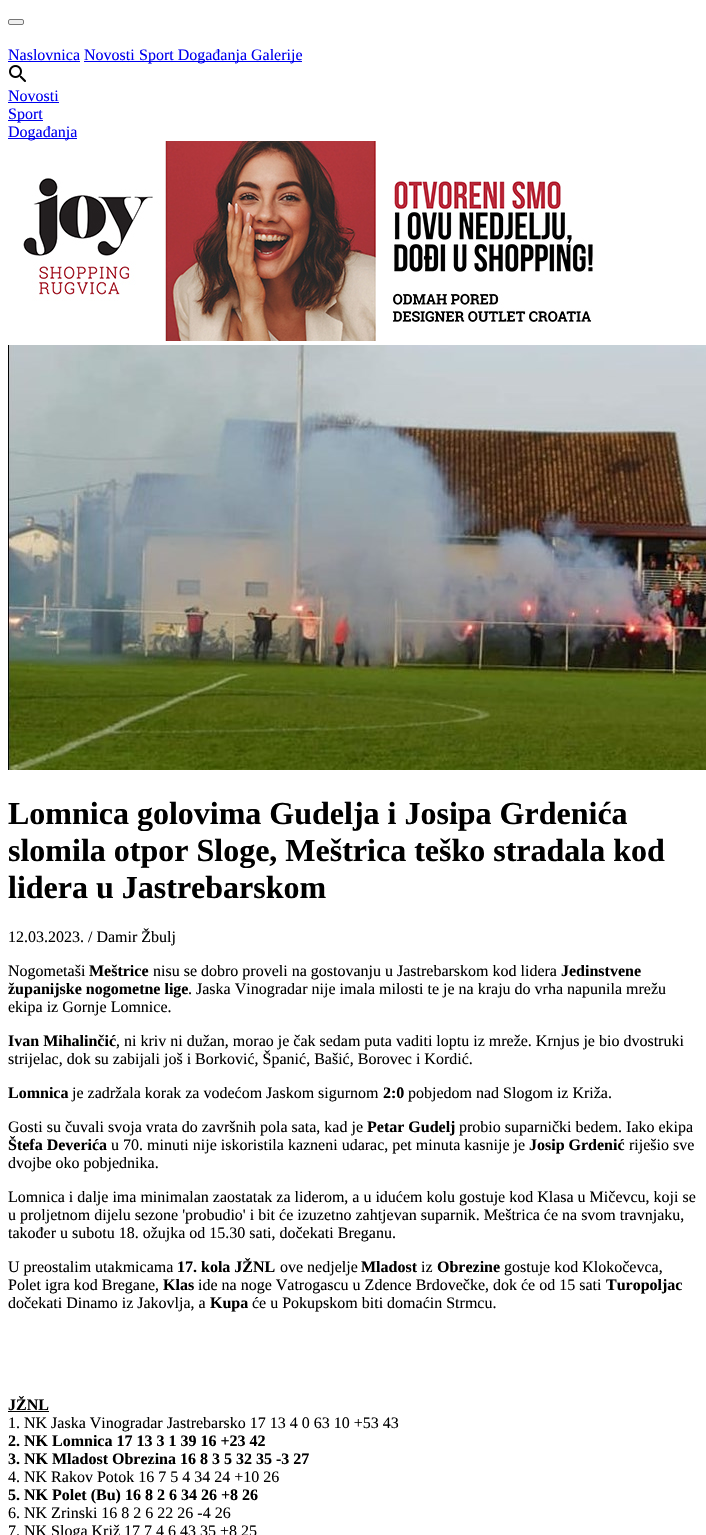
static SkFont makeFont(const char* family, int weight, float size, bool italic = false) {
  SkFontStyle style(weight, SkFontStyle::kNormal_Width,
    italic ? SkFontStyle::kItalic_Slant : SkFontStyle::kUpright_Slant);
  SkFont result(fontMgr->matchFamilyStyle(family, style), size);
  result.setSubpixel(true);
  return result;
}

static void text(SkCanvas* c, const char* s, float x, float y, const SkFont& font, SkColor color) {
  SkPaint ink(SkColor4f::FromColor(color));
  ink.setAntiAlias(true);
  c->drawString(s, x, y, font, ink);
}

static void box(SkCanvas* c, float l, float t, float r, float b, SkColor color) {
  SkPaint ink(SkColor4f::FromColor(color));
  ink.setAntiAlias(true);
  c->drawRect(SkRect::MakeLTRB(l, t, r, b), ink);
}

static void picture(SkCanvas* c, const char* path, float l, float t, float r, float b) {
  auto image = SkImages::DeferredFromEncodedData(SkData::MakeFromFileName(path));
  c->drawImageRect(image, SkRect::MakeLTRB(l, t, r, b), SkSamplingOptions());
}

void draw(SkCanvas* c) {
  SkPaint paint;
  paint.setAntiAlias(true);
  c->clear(0xffffffff);
  paint.setColor(0xffefefef);
  c->drawRoundRect(SkRect::MakeLTRB(8.5f, 19.5f, 23.5f, 24.5f), 1.5f, 1.5f, paint);
  paint.setStyle(SkPaint::kStroke_Style);
  paint.setStrokeWidth(1);
  paint.setColor(0xff767676);
  c->drawRoundRect(SkRect::MakeLTRB(8.5f, 19.5f, 23.5f, 24.5f), 1.5f, 1.5f, paint);
  SkFont face1 = makeFont("Liberation Serif", 400, 16);
  text(c, "Naslovnica Novosti", 8, 60, face1, 0xff0000ee);
  box(c, 8, 61, 80, 62, 0xff0000ee);
  box(c, 84, 61, 302, 62, 0xff0000ee);
  text(c, "Sport Događanja Galerije", 139, 60, face1, 0xff0000ee);
  picture(c, "img_01.png", 9, 65, 26, 82);
  text(c, "Novosti", 8, 101, face1, 0xff0000ee);
  box(c, 8, 102, 59, 103, 0xff0000ee);
  box(c, 8, 120, 43, 121, 0xff0000ee);
  text(c, "Sport", 8, 119, face1, 0xff0000ee);
  box(c, 8, 138, 77, 139, 0xff0000ee);
  text(c, "Događanja", 8, 137, face1, 0xff0000ee);
  picture(c, "img_02.png", 23, 141, 593, 341);
  picture(c, "img_03.png", 8, 345, 706, 770);
  SkFont face2 = makeFont("Liberation Serif", 700, 32);
  text(c, "Lomnica golovima Gudelja i Josipa Grdenića", 8, 824, face2, 0xff000000);
  text(c, "slomila otpor Sloge, Meštrica teško stradala kod", 8, 861, face2, 0xff000000);
  text(c, "lidera u Jastrebarskom", 8, 898, face2, 0xff000000);
  text(c, "12.03.2023. / Damir Žbulj", 8, 942, face1, 0xff000000);
  text(c, "Nogometaši", 8, 976, face1, 0xff000000);
  SkFont face3 = makeFont("Liberation Serif", 700, 16);
  text(c, "Meštrice", 89, 976, face3, 0xff000000);
  text(c, "nisu se dobro proveli na gostovanju u Jastrebarskom kod lidera", 153, 976, face1, 0xff000000);
  text(c, "Jedinstvene", 561, 976, face3, 0xff000000);
  text(c, "županijske nogometne lige", 8, 994, face3, 0xff000000);
  text(c, ". Jaska Vinogradar nije imala milosti te je na kraju do vrha napunila mrežu", 188, 994, face1, 0xff000000);
  text(c, "ekipa iz Gornje Lomnice.", 8, 1012, face1, 0xff000000);
  text(c, "Ivan Mihalinčić", 8, 1046, face3, 0xff000000);
  text(c, ", ni kriv ni dužan, morao je čak sedam puta vaditi loptu iz mreže. Krnjus je bio dvostruki", 116, 1046, face1, 0xff000000);
  text(c, "strijelac, dok su zabijali još i Borković, Španić, Bašić, Borovec i Kordić.", 8, 1064, face1, 0xff000000);
  text(c, "Lomnica", 8, 1098, face3, 0xff000000);
  text(c, "je zadržala korak za vodećom Jaskom sigurnom", 72, 1098, face1, 0xff000000);
  text(c, "2:0", 383, 1098, face3, 0xff000000);
  text(c, "pobjedom nad Slogom iz Križa.", 408, 1098, face1, 0xff000000);
  text(c, "Gosti su čuvali svoja vrata do završnih pola sata, kad je", 8, 1132, face1, 0xff000000);
  text(c, "Petar Gudelj", 367, 1132, face3, 0xff000000);
  text(c, "probio suparnički bedem. Iako ekipa", 459, 1132, face1, 0xff000000);
  text(c, "Štefa Deverića", 8, 1150, face3, 0xff000000);
  text(c, "u 70. minuti nije iskoristila kazneni udarac, pet minuta kasnije je", 111, 1150, face1, 0xff000000);
  text(c, "Josip Grdenić", 529, 1150, face3, 0xff000000);
  text(c, "riješio sve", 629, 1150, face1, 0xff000000);
  text(c, "dvojbe oko pobjednika.", 8, 1168, face1, 0xff000000);
  text(c, "Lomnica i dalje ima minimalan zaostatak za liderom, a u idućem kolu gostuje kod Klasa u Mičevcu, koji se", 8, 1202, face1, 0xff000000);
  text(c, "u proljetnom dijelu sezone 'probudio' i bit će izuzetno zahtjevan suparnik. Meštrica će na svom travnjaku,", 8, 1220, face1, 0xff000000);
  text(c, "također u subotu 18. ožujka od 15.30 sati, dočekati Breganu.", 8, 1238, face1, 0xff000000);
  text(c, "U preostalim utakmicama", 8, 1272, face1, 0xff000000);
  text(c, "17. kola JŽNL", 177, 1272, face3, 0xff000000);
  text(c, "ove nedjelje", 280, 1272, face1, 0xff000000);
  text(c, "Mladost", 361, 1272, face3, 0xff000000);
  text(c, "iz", 421, 1272, face1, 0xff000000);
  text(c, "Obrezine", 437, 1272, face3, 0xff000000);
  text(c, "gostuje kod Klokočevca,", 504, 1272, face1, 0xff000000);
  text(c, "Polet igra kod Bregane,", 8, 1290, face1, 0xff000000);
  text(c, "Klas", 163, 1290, face3, 0xff000000);
  text(c, "ide na noge Vatrogascu u Zdence Brdovečke, dok će od 15 sati", 198, 1290, face1, 0xff000000);
  text(c, "Turopoljac", 606, 1290, face3, 0xff000000);
  text(c, "dočekati Dinamo iz Jakovlja, a", 8, 1308, face1, 0xff000000);
  text(c, "Kupa", 210, 1308, face3, 0xff000000);
  text(c, "će u Pokupskom biti domaćin Strmcu.", 252, 1308, face1, 0xff000000);
  text(c, "JŽNL", 8, 1410, face3, 0xff000000);
  box(c, 8, 1411, 49, 1412, 0xff000000);
  text(c, "1. NK Jaska Vinogradar Jastrebarsko 17 13 4 0 63 10 +53 43", 8, 1428, face1, 0xff000000);
  text(c, "2. NK Lomnica 17 13 3 1 39 16 +23 42", 8, 1446, face3, 0xff000000);
  text(c, "3. NK Mladost Obrezina 16 8 3 5 32 35 -3 27", 8, 1464, face3, 0xff000000);
  text(c, "4. NK Rakov Potok 16 7 5 4 34 24 +10 26", 8, 1482, face1, 0xff000000);
  text(c, "5. NK Polet (Bu) 16 8 2 6 34 26 +8 26", 8, 1500, face3, 0xff000000);
  text(c, "6. NK Zrinski 16 8 2 6 22 26 -4 26", 8, 1518, face1, 0xff000000);
  text(c, "7. NK Sloga Križ 17 7 4 6 43 35 +8 25", 8, 1536, face1, 0xff000000);
}
